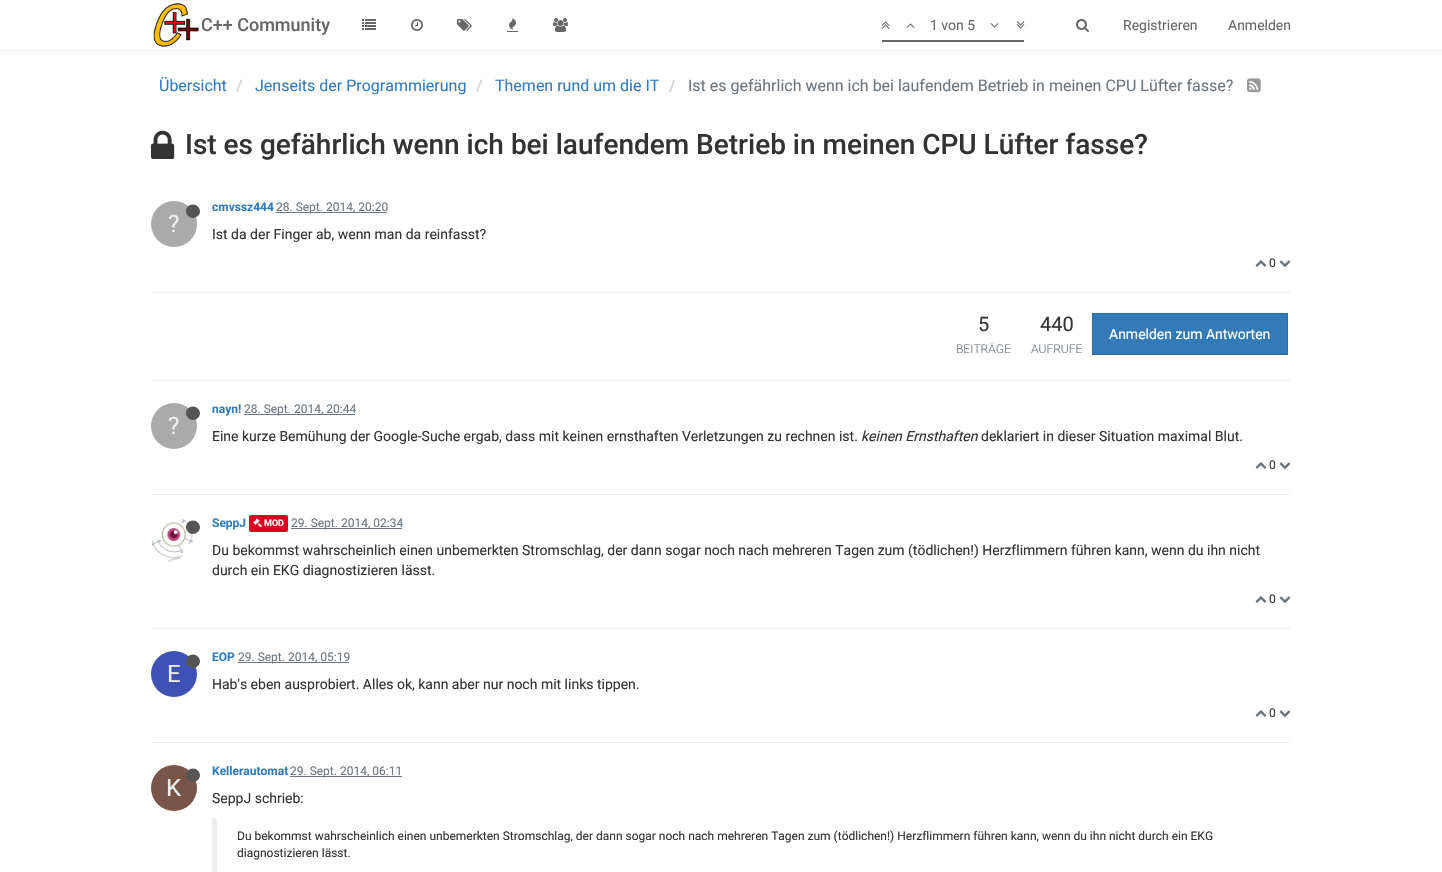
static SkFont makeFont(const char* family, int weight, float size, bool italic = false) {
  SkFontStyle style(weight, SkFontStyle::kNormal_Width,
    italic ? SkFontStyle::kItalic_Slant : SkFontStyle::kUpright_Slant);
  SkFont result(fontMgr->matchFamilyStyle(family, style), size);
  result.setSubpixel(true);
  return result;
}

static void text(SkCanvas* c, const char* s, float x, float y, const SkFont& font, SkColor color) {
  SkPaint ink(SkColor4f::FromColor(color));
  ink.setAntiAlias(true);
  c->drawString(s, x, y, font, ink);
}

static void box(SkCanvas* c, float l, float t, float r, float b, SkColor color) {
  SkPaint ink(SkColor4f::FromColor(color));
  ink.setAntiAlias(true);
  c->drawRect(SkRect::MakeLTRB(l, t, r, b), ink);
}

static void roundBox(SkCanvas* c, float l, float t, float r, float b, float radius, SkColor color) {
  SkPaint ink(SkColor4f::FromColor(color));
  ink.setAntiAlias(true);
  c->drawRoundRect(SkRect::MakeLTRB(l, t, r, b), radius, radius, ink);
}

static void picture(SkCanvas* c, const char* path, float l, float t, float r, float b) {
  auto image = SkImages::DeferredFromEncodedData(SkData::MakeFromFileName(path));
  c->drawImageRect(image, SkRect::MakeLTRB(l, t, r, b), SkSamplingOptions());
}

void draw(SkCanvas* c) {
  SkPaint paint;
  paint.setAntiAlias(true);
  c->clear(0xffffffff);
  box(c, 0, 50, 1442, 51, 0xffeeeeee);
  picture(c, "img_01.png", 153, 3, 199, 47);
  SkFont face1 = makeFont("Roboto", 500, 18);
  text(c, "C++ Community", 201, 31, face1, 0xff666666);
  picture(c, "img_02.png", 362, 19, 376, 30);
  picture(c, "img_03.png", 411, 19, 423, 31);
  picture(c, "img_04.png", 457, 19, 472, 31);
  picture(c, "img_05.png", 507, 18, 518, 32);
  picture(c, "img_06.png", 553, 18, 568, 32);
  picture(c, "img_07.png", 881, 21, 890, 29);
  picture(c, "img_08.png", 906, 23, 915, 28);
  SkFont face2 = makeFont("Roboto", 400, 14);
  text(c, "1 von 5", 930, 30, face2, 0xff666666);
  picture(c, "img_09.png", 990, 23, 999, 28);
  picture(c, "img_10.png", 1016, 21, 1025, 29);
  box(c, 882, 40, 1024, 42, 0xff666666);
  picture(c, "img_11.png", 1076, 19, 1089, 32);
  text(c, "Registrieren", 1123, 30, face2, 0xff666666);
  text(c, "Anmelden", 1228, 30, face2, 0xff666666);
  SkFont face3 = makeFont("Roboto", 400, 16);
  text(c, "Übersicht", 159, 91, face3, 0xff337ab7);
  text(c, "/", 236, 91, face3, 0xffcccccc);
  text(c, "Jenseits der Programmierung", 255, 91, face3, 0xff337ab7);
  text(c, "/", 476, 91, face3, 0xffcccccc);
  text(c, "Themen rund um die IT", 495, 91, face3, 0xff337ab7);
  text(c, "/", 669, 91, face3, 0xffcccccc);
  text(c, "Ist es gefährlich wenn ich bei laufendem Betrieb in meinen CPU Lüfter fasse?", 688, 91, face3, 0xff6c757d);
  picture(c, "img_12.png", 1247, 78, 1261, 93);
  picture(c, "img_13.png", 151, 130, 175, 159);
  SkFont face4 = makeFont("Roboto", 500, 28);
  text(c, "Ist es gefährlich wenn ich bei laufendem Betrieb in meinen CPU Lüfter fasse?", 185, 154, face4, 0xff333333);
  SkFont face5 = makeFont("Roboto", 700, 12);
  text(c, "cmvssz444", 212, 211, face5, 0xff337ab7);
  box(c, 276, 212, 387, 213, 0xff6c757d);
  SkFont face6 = makeFont("Roboto", 400, 12);
  text(c, "28. Sept. 2014, 20:20", 276, 211, face6, 0xff6c757d);
  paint.setColor(0xffaaaaaa);
  c->drawCircle(174, 224, 23, paint);
  paint.setColor(0xff555555);
  c->drawPath(SkPathBuilder().moveTo(199, 208).cubicTo(203.5f, 215.5f, 191.5f, 222.5f, 187, 214.5f).cubicTo(182.5f, 207, 194, 200, 199, 208).close().detach(), paint);
  SkFont face7 = makeFont("Roboto", 400, 24);
  text(c, "?", 168, 232, face7, 0xffeeeeee);
  text(c, "Ist da der Finger ab, wenn man da reinfasst?", 212, 239, face2, 0xff333333);
  picture(c, "img_14.png", 1255, 260, 1267, 267);
  text(c, "0", 1269, 267, face6, 0xff333333);
  picture(c, "img_15.png", 1279, 260, 1291, 268);
  box(c, 151, 292, 1291, 293, 0xffeeeeee);
  SkFont face8 = makeFont("Roboto", 400, 20);
  text(c, "5", 978, 331, face8, 0xff333333);
  SkFont face9 = makeFont("Roboto", 300, 12);
  text(c, "BEITRÄGE", 956, 353, face9, 0xff6c757d);
  text(c, "440", 1040, 331, face8, 0xff333333);
  text(c, "AUFRUFE", 1031, 353, face9, 0xff6c757d);
  paint.setColor(0xff337ab7);
  c->drawRect(SkRect::MakeLTRB(1092.5f, 313.5f, 1287.5f, 354.5f), paint);
  paint.setStyle(SkPaint::kStroke_Style);
  paint.setStrokeWidth(1);
  paint.setColor(0xff2e6da4);
  c->drawRect(SkRect::MakeLTRB(1092.5f, 313.5f, 1287.5f, 354.5f), paint);
  text(c, "Anmelden zum Antworten", 1109, 339, face2, 0xffffffff);
  box(c, 151, 380, 1291, 381, 0xffeeeeee);
  text(c, "nayn!", 212, 413, face5, 0xff337ab7);
  box(c, 244, 414, 355, 415, 0xff6c757d);
  text(c, "28. Sept. 2014, 20:44", 244, 413, face6, 0xff6c757d);
  paint.setStyle(SkPaint::kFill_Style);
  paint.setColor(0xffaaaaaa);
  c->drawCircle(174, 426, 23, paint);
  paint.setColor(0xff555555);
  c->drawPath(SkPathBuilder().moveTo(199, 410).cubicTo(203.5f, 417.5f, 191.5f, 424.5f, 187, 416.5f).cubicTo(182.5f, 409, 194, 402, 199, 410).close().detach(), paint);
  text(c, "?", 168, 434, face7, 0xffeeeeee);
  text(c, "Eine kurze Bemühung der Google-Suche ergab, dass mit keinen ernsthaften Verletzungen zu rechnen ist.", 212, 441, face2, 0xff333333);
  SkFont face10 = makeFont("Roboto", 400, 14, true);
  text(c, "keinen Ernsthaften", 861, 441, face10, 0xff333333);
  text(c, "deklariert in dieser Situation maximal Blut.", 981, 441, face2, 0xff333333);
  picture(c, "img_14.png", 1255, 462, 1267, 469);
  text(c, "0", 1269, 469, face6, 0xff333333);
  picture(c, "img_15.png", 1279, 462, 1291, 470);
  box(c, 151, 494, 1291, 495, 0xffeeeeee);
  picture(c, "img_16.png", 151, 519, 194, 562);
  c->drawPath(SkPathBuilder().moveTo(199, 524).cubicTo(203.5f, 531.5f, 191.5f, 538.5f, 187, 530.5f).cubicTo(182.5f, 523, 194, 516, 199, 524).close().detach(), paint);
  text(c, "SeppJ", 212, 527, face5, 0xff337ab7);
  roundBox(c, 249, 515, 288, 532, 2, 0xffdb001d);
  picture(c, "img_17.png", 253, 518, 262, 528);
  SkFont face11 = makeFont("Roboto", 700, 9);
  text(c, "MOD", 264, 526, face11, 0xffffffff);
  box(c, 291, 528, 402, 529, 0xff6c757d);
  text(c, "29. Sept. 2014, 02:34", 291, 527, face6, 0xff6c757d);
  text(c, "Du bekommst wahrscheinlich einen unbemerkten Stromschlag, der dann sogar noch nach mehreren Tagen zum (tödlichen!) Herzflimmern führen kann, wenn du ihn nicht", 212, 555, face2, 0xff333333);
  text(c, "durch ein EKG diagnostizieren lässt.", 212, 575, face2, 0xff333333);
  picture(c, "img_14.png", 1255, 596, 1267, 603);
  text(c, "0", 1269, 603, face6, 0xff333333);
  picture(c, "img_15.png", 1279, 596, 1291, 604);
  box(c, 151, 628, 1291, 629, 0xffeeeeee);
  text(c, "EOP", 212, 661, face5, 0xff337ab7);
  box(c, 238, 662, 349, 663, 0xff6c757d);
  text(c, "29. Sept. 2014, 05:19", 238, 661, face6, 0xff6c757d);
  paint.setColor(0xff3f51b5);
  c->drawCircle(174, 674, 23, paint);
  paint.setColor(0xff555555);
  c->drawPath(SkPathBuilder().moveTo(199, 658).cubicTo(203.5f, 665.5f, 191.5f, 672.5f, 187, 664.5f).cubicTo(182.5f, 657, 194, 650, 199, 658).close().detach(), paint);
  text(c, "E", 167, 682, face7, 0xffeeeeee);
  text(c, "Hab's eben ausprobiert. Alles ok, kann aber nur noch mit links tippen.", 212, 689, face2, 0xff333333);
  picture(c, "img_14.png", 1255, 710, 1267, 717);
  text(c, "0", 1269, 717, face6, 0xff333333);
  picture(c, "img_15.png", 1279, 710, 1291, 718);
  box(c, 151, 742, 1291, 743, 0xffeeeeee);
  text(c, "Kellerautomat", 212, 775, face5, 0xff337ab7);
  box(c, 290, 776, 402, 777, 0xff6c757d);
  text(c, "29. Sept. 2014, 06:11", 290, 775, face6, 0xff6c757d);
  paint.setColor(0xff795548);
  c->drawCircle(174, 788, 23, paint);
  paint.setColor(0xff555555);
  c->drawPath(SkPathBuilder().moveTo(199, 772).cubicTo(203.5f, 779.5f, 191.5f, 786.5f, 187, 778.5f).cubicTo(182.5f, 771, 194, 764, 199, 772).close().detach(), paint);
  text(c, "K", 166, 796, face7, 0xffeeeeee);
  text(c, "SeppJ schrieb:", 212, 803, face2, 0xff333333);
  box(c, 212, 818, 217, 872, 0xffeeeeee);
  text(c, "Du bekommst wahrscheinlich einen unbemerkten Stromschlag, der dann sogar noch nach mehreren Tagen zum (tödlichen!) Herzflimmern führen kann, wenn du ihn nicht durch ein EKG", 237, 840, face6, 0xff333333);
  text(c, "diagnostizieren lässt.", 237, 857, face6, 0xff333333);
}
